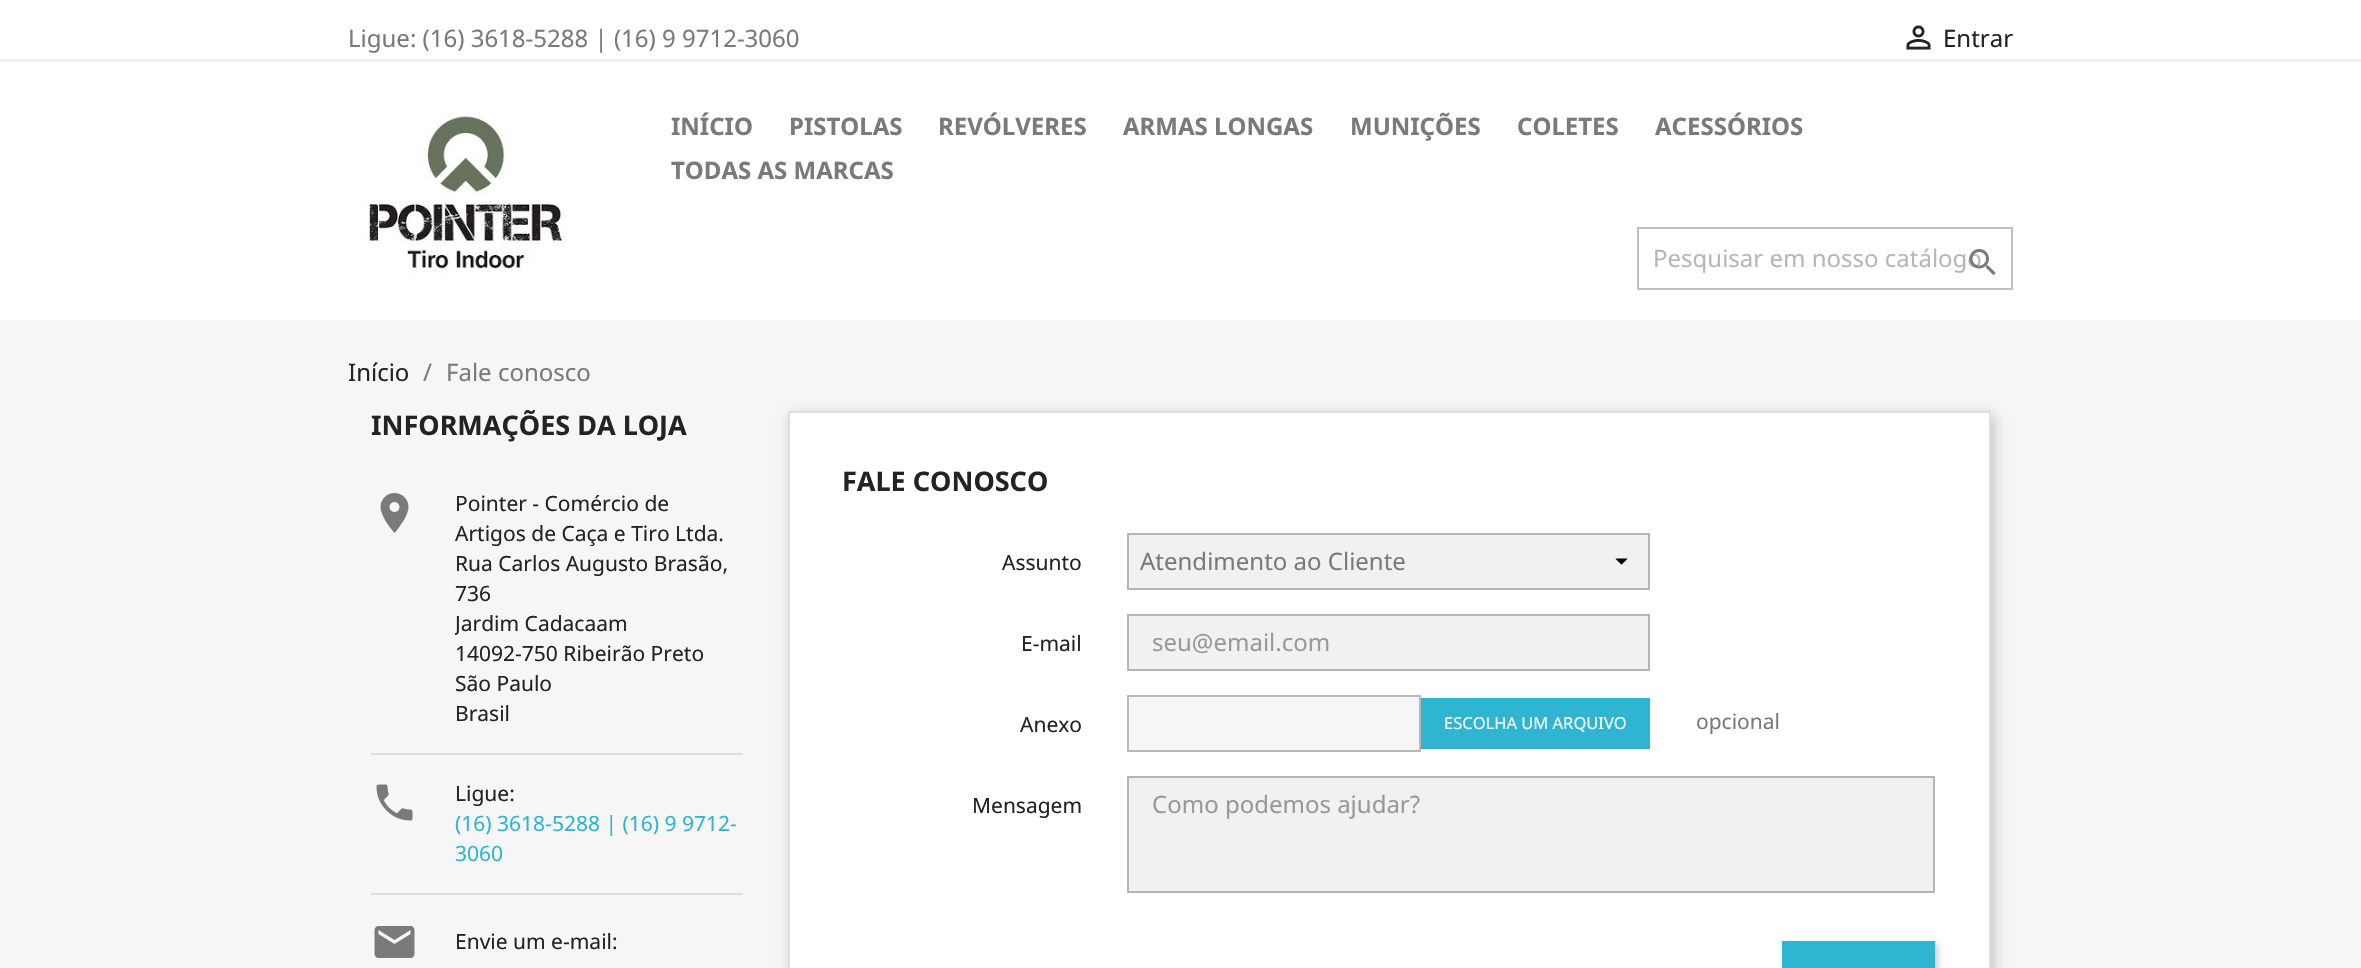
static SkFont makeFont(const char* family, int weight, float size, bool italic = false) {
  SkFontStyle style(weight, SkFontStyle::kNormal_Width,
    italic ? SkFontStyle::kItalic_Slant : SkFontStyle::kUpright_Slant);
  SkFont result(fontMgr->matchFamilyStyle(family, style), size);
  result.setSubpixel(true);
  return result;
}

static void text(SkCanvas* c, const char* s, float x, float y, const SkFont& font, SkColor color) {
  SkPaint ink(SkColor4f::FromColor(color));
  ink.setAntiAlias(true);
  c->drawString(s, x, y, font, ink);
}

static void box(SkCanvas* c, float l, float t, float r, float b, SkColor color) {
  SkPaint ink(SkColor4f::FromColor(color));
  ink.setAntiAlias(true);
  c->drawRect(SkRect::MakeLTRB(l, t, r, b), ink);
}

static void picture(SkCanvas* c, const char* path, float l, float t, float r, float b) {
  auto image = SkImages::DeferredFromEncodedData(SkData::MakeFromFileName(path));
  c->drawImageRect(image, SkRect::MakeLTRB(l, t, r, b), SkSamplingOptions());
}

void draw(SkCanvas* c) {
  SkPaint paint;
  paint.setAntiAlias(true);
  c->clear(0xffffffff);
  box(c, 0, 59, 2361, 62, 0xfff1f1f1);
  SkFont face1 = makeFont("Noto Sans", 400, 24);
  text(c, "Ligue: (16) 3618-5288 | (16) 9 9712-3060", 348, 47, face1, 0xff7a7a7a);
  picture(c, "img_01.png", 1906, 25, 1931, 50);
  text(c, "Entrar", 1943, 47, face1, 0xff232323);
  picture(c, "img_02.png", 364, 114, 565, 274);
  SkFont face2 = makeFont("Noto Sans", 700, 24);
  text(c, "INÍCIO", 671, 135, face2, 0xff7a7a7a);
  text(c, "PISTOLAS", 789, 135, face2, 0xff7a7a7a);
  text(c, "REVÓLVERES", 938, 135, face2, 0xff7a7a7a);
  text(c, "ARMAS LONGAS", 1123, 135, face2, 0xff7a7a7a);
  text(c, "MUNIÇÕES", 1350, 135, face2, 0xff7a7a7a);
  text(c, "COLETES", 1517, 135, face2, 0xff7a7a7a);
  text(c, "ACESSÓRIOS", 1655, 135, face2, 0xff7a7a7a);
  text(c, "TODAS AS MARCAS", 671, 179, face2, 0xff7a7a7a);
  paint.setStyle(SkPaint::kStroke_Style);
  paint.setStrokeWidth(2);
  paint.setColor(0xffbfbfbf);
  c->drawRect(SkRect::MakeLTRB(1638, 228, 2012, 289), paint);
  text(c, "Pesquisar em nosso catálogo", 1653, 267, face1, 0xffb7b7b7);
  picture(c, "img_03.png", 1969, 249, 1996, 276);
  box(c, 0, 320, 2361, 968, 0xfff6f6f6);
  text(c, "Início", 348, 381, face1, 0xff232323);
  text(c, "/", 423, 381, face1, 0xff7a7a7a);
  text(c, "Fale conosco", 446, 381, face1, 0xff7a7a7a);
  SkFont face3 = makeFont("Noto Sans", 700, 27);
  text(c, "INFORMAÇÕES DA LOJA", 371, 435, face3, 0xff232323);
  picture(c, "img_04.png", 380, 493, 409, 533);
  SkFont face4 = makeFont("Noto Sans", 400, 21);
  text(c, "Pointer - Comércio de", 455, 511, face4, 0xff232323);
  text(c, "Artigos de Caça e Tiro Ltda.", 455, 541, face4, 0xff232323);
  text(c, "Rua Carlos Augusto Brasão,", 455, 571, face4, 0xff232323);
  text(c, "736", 455, 601, face4, 0xff232323);
  c->save();
  c->clipRect(SkRect::MakeLTRB(455, 489, 743, 729));
  text(c, "Jardim Cadacaam", 455, 631, face4, 0xff232323);
  c->restore();
  text(c, "14092-750 Ribeirão Preto", 455, 661, face4, 0xff232323);
  text(c, "São Paulo", 455, 691, face4, 0xff232323);
  text(c, "Brasil", 455, 721, face4, 0xff232323);
  box(c, 371, 753, 743, 755, 0xffdddddd);
  picture(c, "img_05.png", 376, 784, 413, 821);
  text(c, "Ligue:", 455, 801, face4, 0xff232323);
  text(c, "(16) 3618-5288 | (16) 9 9712-", 455, 831, face4, 0xff2fb5d2);
  text(c, "3060", 455, 861, face4, 0xff2fb5d2);
  box(c, 371, 893, 743, 895, 0xffdddddd);
  picture(c, "img_06.png", 374, 926, 415, 958);
  text(c, "Envie um e-mail:", 455, 949, face4, 0xff232323);
  paint.setStyle(SkPaint::kFill_Style);
  paint.setColor(0x33000000);
  paint.setMaskFilter(SkMaskFilter::MakeBlur(kNormal_SkBlurStyle, 6));
  c->drawRect(SkRect::MakeLTRB(791, 414, 1994, 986), paint);
  paint.setMaskFilter(nullptr);
  paint.setColor(0xffffffff);
  c->drawRect(SkRect::MakeLTRB(789, 412, 1990, 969), paint);
  paint.setStyle(SkPaint::kStroke_Style);
  paint.setColor(0xffdfdfdf);
  c->drawRect(SkRect::MakeLTRB(789, 412, 1990, 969), paint);
  text(c, "FALE CONOSCO", 842, 491, face3, 0xff232323);
  text(c, "Assunto", 1002, 570, face4, 0xff232323);
  box(c, 1129, 535, 1648, 588, 0xfff1f1f1);
  picture(c, "img_07.png", 1615, 558, 1628, 565);
  paint.setColor(0xffb5b5b5);
  c->drawRect(SkRect::MakeLTRB(1128, 534, 1649, 589), paint);
  text(c, "Atendimento ao Cliente", 1140, 570, face1, 0xff7a7a7a);
  text(c, "E-mail", 1021, 651, face4, 0xff232323);
  paint.setStyle(SkPaint::kFill_Style);
  paint.setColor(0xfff1f1f1);
  c->drawRect(SkRect::MakeLTRB(1128, 615, 1649, 670), paint);
  paint.setStyle(SkPaint::kStroke_Style);
  paint.setColor(0xffb5b5b5);
  c->drawRect(SkRect::MakeLTRB(1128, 615, 1649, 670), paint);
  text(c, "seu@email.com", 1152, 651, face1, 0xff999999);
  text(c, "Anexo", 1020, 732, face4, 0xff232323);
  paint.setStyle(SkPaint::kFill_Style);
  paint.setColor(0xfff6f6f6);
  c->drawRect(SkRect::MakeLTRB(1128, 696, 1420, 751), paint);
  paint.setStyle(SkPaint::kStroke_Style);
  paint.setColor(0xffb9b9b9);
  c->drawRect(SkRect::MakeLTRB(1128, 696, 1420, 751), paint);
  box(c, 1421, 698, 1650, 749, 0xff2fb5d2);
  SkFont face5 = makeFont("Noto Sans", 400, 16.5f);
  text(c, "ESCOLHA UM ARQUIVO", 1444, 729, face5, 0xffffffff);
  text(c, "opcional", 1696, 729, face4, 0xff7a7a7a);
  text(c, "Mensagem", 972, 813, face4, 0xff232323);
  paint.setStyle(SkPaint::kFill_Style);
  paint.setColor(0xfff1f1f1);
  c->drawRect(SkRect::MakeLTRB(1128, 777, 1934, 892), paint);
  paint.setStyle(SkPaint::kStroke_Style);
  paint.setColor(0xffb5b5b5);
  c->drawRect(SkRect::MakeLTRB(1128, 777, 1934, 892), paint);
  text(c, "Como podemos ajudar?", 1152, 813, face1, 0xff999999);
  paint.setStyle(SkPaint::kFill_Style);
  paint.setColor(0x33000000);
  paint.setMaskFilter(SkMaskFilter::MakeBlur(kNormal_SkBlurStyle, 3));
  c->drawRect(SkRect::MakeLTRB(1785, 944, 1938, 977), paint);
  paint.setMaskFilter(nullptr);
  box(c, 1782, 941, 1935, 968, 0xff2fb5d2);
}
